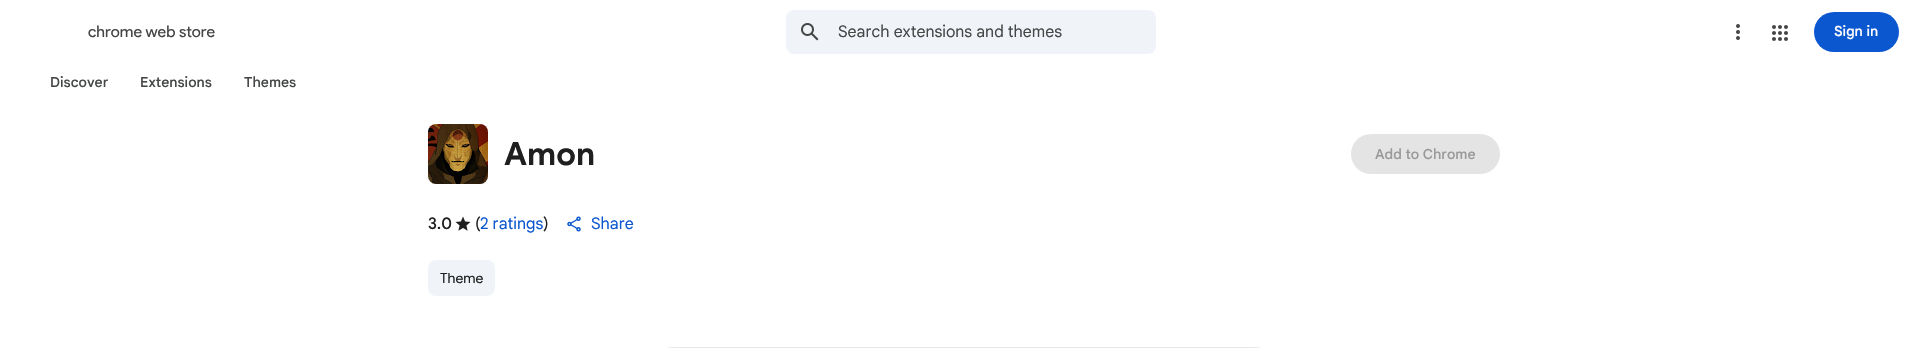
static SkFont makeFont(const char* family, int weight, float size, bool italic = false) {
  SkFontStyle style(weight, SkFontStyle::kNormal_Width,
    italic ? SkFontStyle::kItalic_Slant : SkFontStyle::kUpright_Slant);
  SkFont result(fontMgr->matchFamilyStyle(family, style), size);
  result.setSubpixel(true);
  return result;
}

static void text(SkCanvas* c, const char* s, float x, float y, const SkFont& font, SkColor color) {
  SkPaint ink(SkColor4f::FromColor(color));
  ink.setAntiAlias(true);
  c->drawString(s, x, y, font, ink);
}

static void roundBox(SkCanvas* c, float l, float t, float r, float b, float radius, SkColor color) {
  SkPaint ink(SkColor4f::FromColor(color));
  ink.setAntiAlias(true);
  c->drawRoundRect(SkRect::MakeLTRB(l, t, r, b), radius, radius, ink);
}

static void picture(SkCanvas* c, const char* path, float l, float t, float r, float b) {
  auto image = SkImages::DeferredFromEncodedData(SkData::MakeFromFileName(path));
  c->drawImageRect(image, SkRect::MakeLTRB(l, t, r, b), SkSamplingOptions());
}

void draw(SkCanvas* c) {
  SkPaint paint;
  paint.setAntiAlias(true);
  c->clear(0xffffffff);
  picture(c, "img_01.png", 61, 21, 67, 22);
  SkFont face1 = makeFont("Product Sans", 400, 16);
  text(c, "chrome web store", 88, 37, face1, 0xff444746);
  roundBox(c, 786, 10, 1156, 54, 8, 0xfff0f4f9);
  picture(c, "img_02.png", 801, 23, 819, 41);
  SkFont face2 = makeFont("Google Sans", 400, 16);
  text(c, "Search extensions and themes", 838, 37, face2, 0xff444746);
  picture(c, "img_03.png", 1736, 24, 1740, 40);
  picture(c, "img_04.png", 1772, 25, 1788, 41);
  roundBox(c, 1814, 12, 1899, 52, 20, 0xff0b57d0);
  SkFont face3 = makeFont("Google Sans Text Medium", 500, 14);
  text(c, "Sign in", 1834, 36, face3, 0xffffffff);
  text(c, "Discover", 50, 87, face3, 0xff444746);
  text(c, "Extensions", 140, 87, face3, 0xff444746);
  text(c, "Themes", 244, 87, face3, 0xff444746);
  picture(c, "img_05.png", 428, 124, 488, 184);
  SkFont face4 = makeFont("Google Sans", 700, 32);
  text(c, "Amon", 504, 165, face4, 0xff1f1f1f);
  roundBox(c, 1351, 134, 1500, 174, 20, 0xffe4e4e4);
  text(c, "Add to Chrome", 1375, 159, face3, 0xff999999);
  SkFont face5 = makeFont("Google Sans", 500, 16);
  text(c, "3.0", 428, 229, face5, 0xff1f1f1f);
  picture(c, "img_06.png", 455, 216, 471, 231);
  text(c, "(", 475, 229, face2, 0xff1f1f1f);
  text(c, "2 ratings", 480, 229, face2, 0xff0b57d0);
  text(c, ")", 543, 229, face2, 0xff1f1f1f);
  picture(c, "img_07.png", 567, 216, 581, 232);
  SkFont face6 = makeFont("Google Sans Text", 400, 16);
  text(c, "Share", 591, 229, face6, 0xff0b57d0);
  roundBox(c, 428, 260, 495, 296, 8, 0xfff0f4f9);
  SkFont face7 = makeFont("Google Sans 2", 400, 14);
  text(c, "Theme", 440, 283, face7, 0xff1f1f1f);
  picture(c, "img_08.png", 666, 347, 1261, 348);
}
